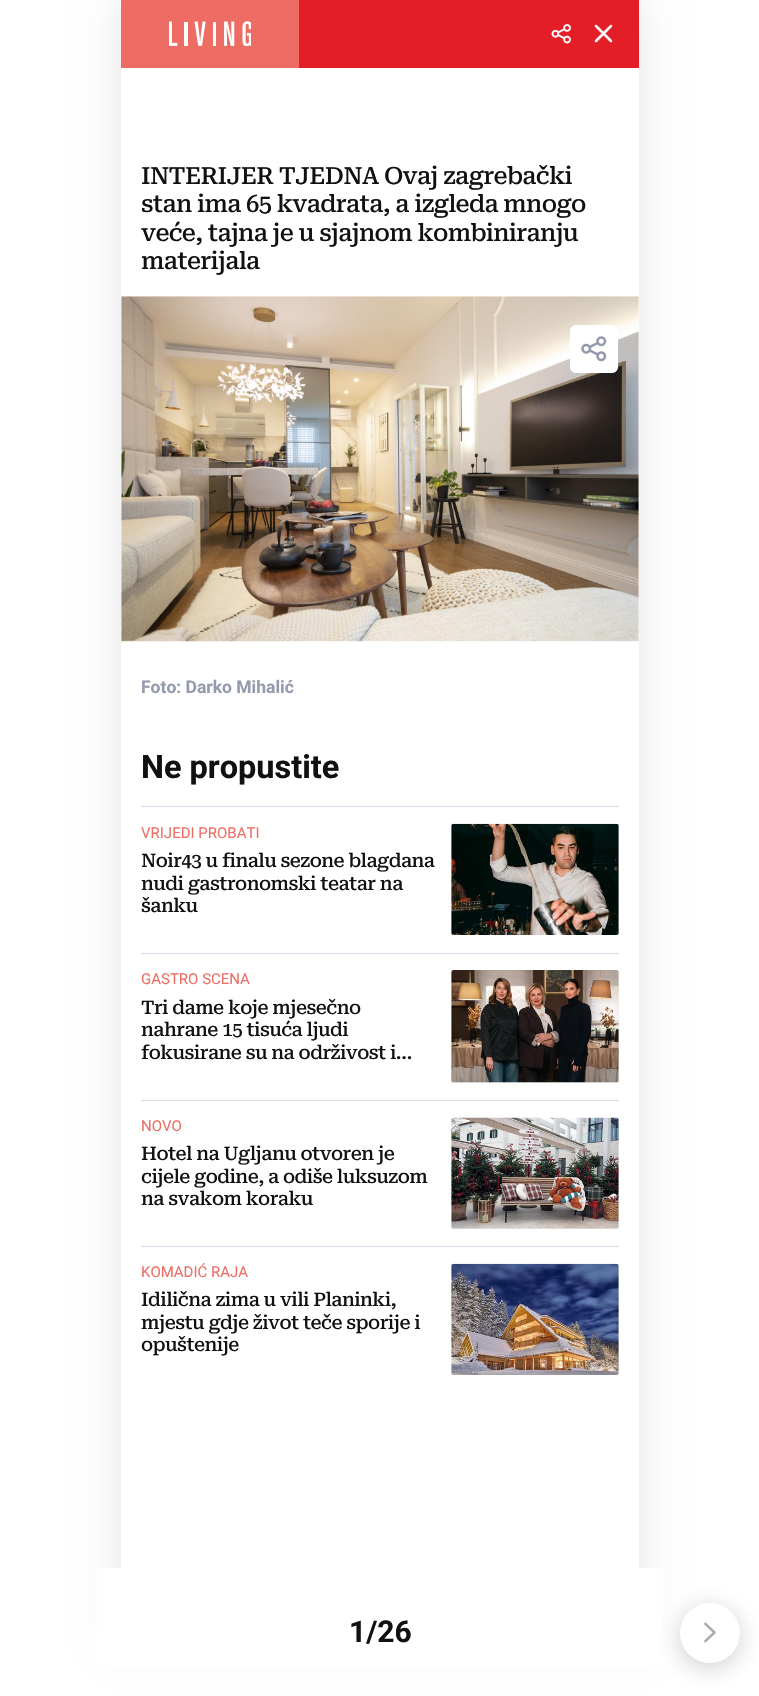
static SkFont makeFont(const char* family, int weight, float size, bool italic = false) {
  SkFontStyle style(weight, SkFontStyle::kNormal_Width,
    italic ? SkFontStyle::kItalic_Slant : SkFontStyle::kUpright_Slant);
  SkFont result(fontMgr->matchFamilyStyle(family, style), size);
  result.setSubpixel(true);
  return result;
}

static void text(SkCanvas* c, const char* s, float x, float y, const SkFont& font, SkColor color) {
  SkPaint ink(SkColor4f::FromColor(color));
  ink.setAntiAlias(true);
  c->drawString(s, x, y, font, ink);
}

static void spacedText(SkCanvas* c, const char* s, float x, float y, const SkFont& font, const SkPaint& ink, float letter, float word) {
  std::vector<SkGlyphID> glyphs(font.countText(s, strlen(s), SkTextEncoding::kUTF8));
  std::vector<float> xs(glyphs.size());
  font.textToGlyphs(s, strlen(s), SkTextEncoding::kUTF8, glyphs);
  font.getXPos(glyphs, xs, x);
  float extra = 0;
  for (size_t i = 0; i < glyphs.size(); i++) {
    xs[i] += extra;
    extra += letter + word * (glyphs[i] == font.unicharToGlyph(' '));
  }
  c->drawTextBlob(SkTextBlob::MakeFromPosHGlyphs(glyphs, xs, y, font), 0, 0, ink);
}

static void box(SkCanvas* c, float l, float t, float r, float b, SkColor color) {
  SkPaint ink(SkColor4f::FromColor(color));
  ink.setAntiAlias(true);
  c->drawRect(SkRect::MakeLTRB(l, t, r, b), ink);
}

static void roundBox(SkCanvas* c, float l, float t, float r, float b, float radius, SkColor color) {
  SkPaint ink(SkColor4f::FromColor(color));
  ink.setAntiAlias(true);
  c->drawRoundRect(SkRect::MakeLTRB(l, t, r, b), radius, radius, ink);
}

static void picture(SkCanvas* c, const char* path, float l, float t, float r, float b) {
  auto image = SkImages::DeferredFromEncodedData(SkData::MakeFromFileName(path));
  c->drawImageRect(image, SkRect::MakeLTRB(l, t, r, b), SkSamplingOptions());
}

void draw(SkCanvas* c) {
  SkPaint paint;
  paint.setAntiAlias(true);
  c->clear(0xffffffff);
  c->save();
  c->clipPath(SkPathBuilder(SkPathFillType::kEvenOdd).moveTo(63, 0).lineTo(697, 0).lineTo(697, 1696).lineTo(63, 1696).close().moveTo(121, 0).lineTo(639, 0).lineTo(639, 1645).lineTo(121, 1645).close().detach(), true);
  paint.setColor(0x1a000000);
  paint.setMaskFilter(SkMaskFilter::MakeBlur(kNormal_SkBlurStyle, 19));
  c->drawRect(SkRect::MakeLTRB(121, 0, 639, 1645), paint);
  paint.setMaskFilter(nullptr);
  c->restore();
  box(c, 299, 0, 639, 68, 0xffe41e27);
  box(c, 121, 0, 299, 68, 0xffed6d65);
  picture(c, "img_01.png", 169, 21, 251, 46);
  picture(c, "img_02.png", 551, 24, 571, 44);
  paint.setStyle(SkPaint::kStroke_Style);
  paint.setStrokeWidth(2.5f);
  paint.setStrokeCap(SkPaint::kRound_Cap);
  paint.setStrokeJoin(SkPaint::kRound_Join);
  paint.setColor(0xffffffff);
  c->drawPath(SkPathBuilder().moveTo(596, 41).lineTo(611, 26).moveTo(596, 26).lineTo(611, 41).detach(), paint);
  SkFont face1 = makeFont("Roboto Serif", 500, 23.75f);
  paint.setStyle(SkPaint::kFill_Style);
  paint.setColor(0xff111111);
  spacedText(c, "INTERIJER TJEDNA Ovaj zagrebački", 141, 184, face1, paint, -0.7f, 0);
  spacedText(c, "stan ima 65 kvadrata, a izgleda mnogo", 141, 212, face1, paint, -0.7f, 0);
  spacedText(c, "veće, tajna je u sjajnom kombiniranju", 141, 241, face1, paint, -0.7f, 0);
  spacedText(c, "materijala", 141, 269, face1, paint, -0.7f, 0);
  picture(c, "img_03.png", 121, 296, 639, 642);
  picture(c, "img_04.png", 570, 325, 618, 373);
  SkFont face2 = makeFont("Roboto", 700, 17.5f);
  text(c, "Foto: Darko Mihalić", 141, 693, face2, 0xff959baf);
  SkFont face3 = makeFont("Roboto", 700, 32.5f);
  text(c, "Ne propustite", 141, 778, face3, 0xff111111);
  box(c, 141, 806, 619, 807, 0xffd3dce6);
  SkFont face4 = makeFont("Roboto", 400, 15);
  text(c, "VRIJEDI PROBATI", 141, 838, face4, 0xffed6e65);
  SkFont face5 = makeFont("Roboto Serif", 500, 18.75f);
  spacedText(c, "Noir43 u finalu sezone blagdana", 141, 867, face5, paint, -0.55f, 0);
  spacedText(c, "nudi gastronomski teatar na", 141, 890, face5, paint, -0.55f, 0);
  spacedText(c, "šanku", 141, 912, face5, paint, -0.55f, 0);
  roundBox(c, 451, 824, 619, 935, 2.5f, 0xffeeeeee);
  picture(c, "img_05.png", 451, 823, 619, 935);
  box(c, 141, 953, 619, 954, 0xffd3dce6);
  text(c, "GASTRO SCENA", 141, 984, face4, 0xffed6e65);
  spacedText(c, "Tri dame koje mjesečno", 141, 1014, face5, paint, -0.55f, 0);
  spacedText(c, "nahrane 15 tisuća ljudi", 141, 1036, face5, paint, -0.55f, 0);
  spacedText(c, "fokusirane su na održivost i…", 141, 1059, face5, paint, -0.55f, 0);
  roundBox(c, 451, 970, 619, 1083, 2.5f, 0xffeeeeee);
  picture(c, "img_06.png", 451, 970, 619, 1083);
  box(c, 141, 1100, 619, 1101, 0xffd3dce6);
  text(c, "NOVO", 141, 1131, face4, 0xffed6e65);
  spacedText(c, "Hotel na Ugljanu otvoren je", 141, 1160, face5, paint, -0.55f, 0);
  spacedText(c, "cijele godine, a odiše luksuzom", 141, 1183, face5, paint, -0.55f, 0);
  spacedText(c, "na svakom koraku", 141, 1205, face5, paint, -0.55f, 0);
  roundBox(c, 451, 1118, 619, 1229, 2.5f, 0xffeeeeee);
  picture(c, "img_07.png", 451, 1117, 619, 1229);
  box(c, 141, 1246, 619, 1247, 0xffd3dce6);
  text(c, "KOMADIĆ RAJA", 141, 1277, face4, 0xffed6e65);
  spacedText(c, "Idilična zima u vili Planinki,", 141, 1306, face5, paint, -0.55f, 0);
  spacedText(c, "mjestu gdje život teče sporije i", 141, 1329, face5, paint, -0.55f, 0);
  spacedText(c, "opuštenije", 141, 1351, face5, paint, -0.55f, 0);
  roundBox(c, 451, 1264, 619, 1375, 2.5f, 0xffeeeeee);
  picture(c, "img_08.png", 451, 1263, 619, 1375);
  box(c, 97, 1568, 663, 1669, 0xffffffff);
  SkFont face6 = makeFont("Roboto", 700, 30);
  text(c, "1/26", 349, 1642, face6, 0xff111111);
  paint.setColor(0x33111111);
  paint.setMaskFilter(SkMaskFilter::MakeBlur(kNormal_SkBlurStyle, 12.5f));
  c->drawRoundRect(SkRect::MakeLTRB(680, 1608, 740, 1668), 30, 30, paint);
  paint.setMaskFilter(nullptr);
  paint.setColor(0xffffffff);
  c->drawCircle(710, 1633, 30, paint);
  paint.setStyle(SkPaint::kStroke_Style);
  paint.setStrokeCap(SkPaint::kSquare_Cap);
  paint.setColor(0xffacacac);
  c->drawPath(SkPathBuilder().moveTo(705.5f, 1624).lineTo(714.5f, 1632.5f).lineTo(705.5f, 1641).detach(), paint);
}
